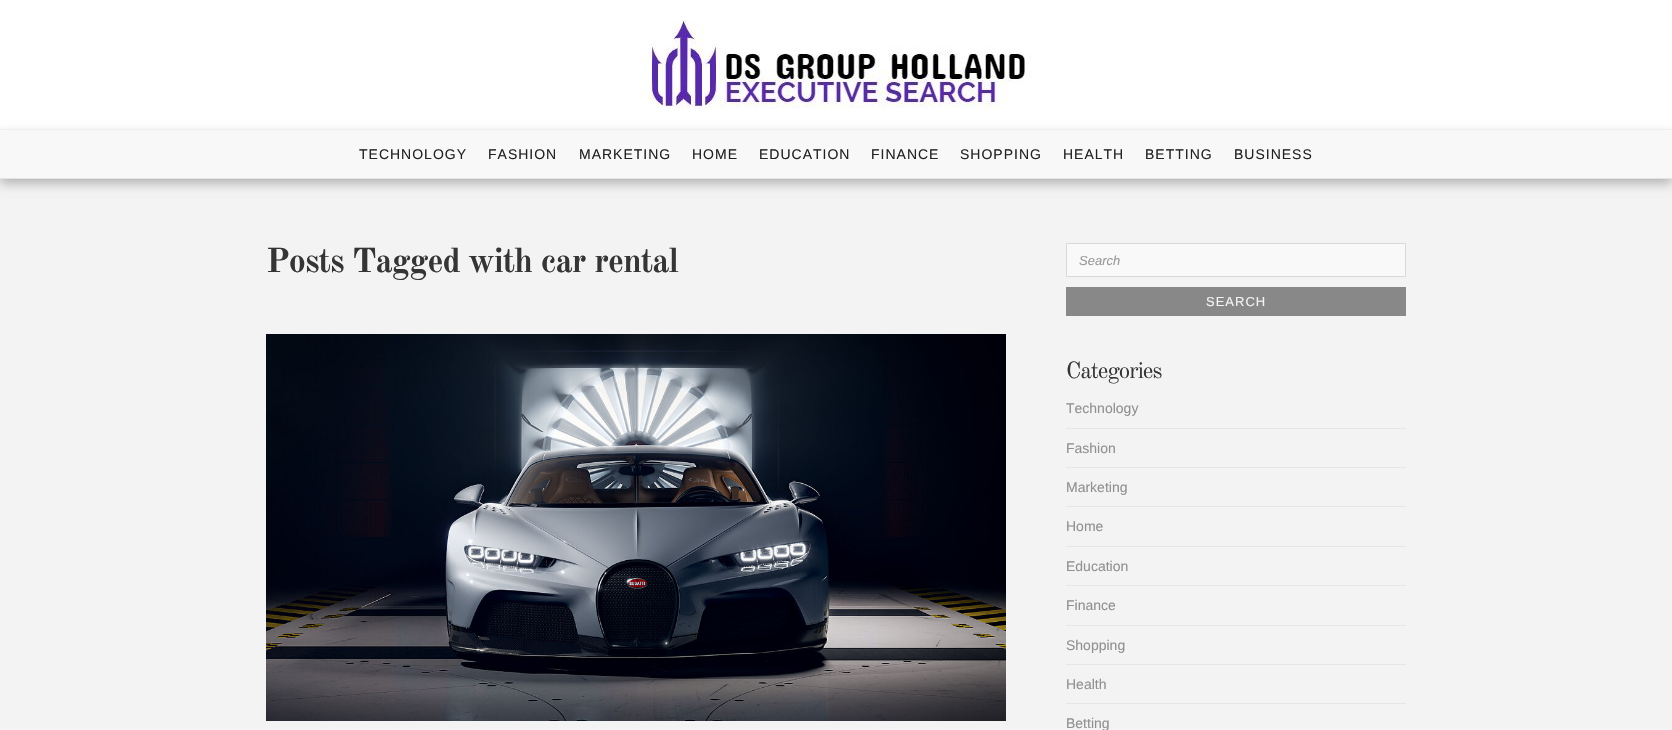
static SkFont makeFont(const char* family, int weight, float size, bool italic = false) {
  SkFontStyle style(weight, SkFontStyle::kNormal_Width,
    italic ? SkFontStyle::kItalic_Slant : SkFontStyle::kUpright_Slant);
  SkFont result(fontMgr->matchFamilyStyle(family, style), size);
  result.setSubpixel(true);
  return result;
}

static void text(SkCanvas* c, const char* s, float x, float y, const SkFont& font, SkColor color) {
  SkPaint ink(SkColor4f::FromColor(color));
  ink.setAntiAlias(true);
  c->drawString(s, x, y, font, ink);
}

static void spacedText(SkCanvas* c, const char* s, float x, float y, const SkFont& font, const SkPaint& ink, float letter, float word) {
  std::vector<SkGlyphID> glyphs(font.countText(s, strlen(s), SkTextEncoding::kUTF8));
  std::vector<float> xs(glyphs.size());
  font.textToGlyphs(s, strlen(s), SkTextEncoding::kUTF8, glyphs);
  font.getXPos(glyphs, xs, x);
  float extra = 0;
  for (size_t i = 0; i < glyphs.size(); i++) {
    xs[i] += extra;
    extra += letter + word * (glyphs[i] == font.unicharToGlyph(' '));
  }
  c->drawTextBlob(SkTextBlob::MakeFromPosHGlyphs(glyphs, xs, y, font), 0, 0, ink);
}

static void box(SkCanvas* c, float l, float t, float r, float b, SkColor color) {
  SkPaint ink(SkColor4f::FromColor(color));
  ink.setAntiAlias(true);
  c->drawRect(SkRect::MakeLTRB(l, t, r, b), ink);
}

static void picture(SkCanvas* c, const char* path, float l, float t, float r, float b) {
  auto image = SkImages::DeferredFromEncodedData(SkData::MakeFromFileName(path));
  c->drawImageRect(image, SkRect::MakeLTRB(l, t, r, b), SkSamplingOptions());
}

void draw(SkCanvas* c) {
  SkPaint paint;
  paint.setAntiAlias(true);
  c->clear(0xfff3f3f3);
  box(c, 0, 0, 1672, 129, 0xffffffff);
  picture(c, "img_01.png", 641, 20, 1032, 109);
  paint.setColor(0x40000000);
  paint.setMaskFilter(SkMaskFilter::MakeBlur(kNormal_SkBlurStyle, 5));
  c->drawRect(SkRect::MakeLTRB(0, 134, 1672, 184), paint);
  paint.setMaskFilter(nullptr);
  box(c, 0, 130, 1672, 178, 0xfff8f8f8);
  box(c, 0, 129, 1672, 130, 0xffefefef);
  box(c, 0, 178, 1672, 179, 0xffe5e5e5);
  SkFont face1 = makeFont("Liberation Sans", 400, 14);
  paint.setColor(0xff222222);
  spacedText(c, "TECHNOLOGY", 359, 159, face1, paint, 1, 0);
  spacedText(c, "FASHION", 488, 159, face1, paint, 1, 0);
  spacedText(c, "MARKETING", 579, 159, face1, paint, 1, 0);
  spacedText(c, "HOME", 692, 159, face1, paint, 1, 0);
  spacedText(c, "EDUCATION", 759, 159, face1, paint, 1, 0);
  spacedText(c, "FINANCE", 871, 159, face1, paint, 1, 0);
  spacedText(c, "SHOPPING", 960, 159, face1, paint, 1, 0);
  spacedText(c, "HEALTH", 1063, 159, face1, paint, 1, 0);
  spacedText(c, "BETTING", 1145, 159, face1, paint, 1, 0);
  spacedText(c, "BUSINESS", 1234, 159, face1, paint, 1, 0);
  SkFont face2 = makeFont("Old Standard TT", 700, 34);
  paint.setColor(0xff353535);
  spacedText(c, "Posts Tagged with car rental", 266, 272, face2, paint, -1, 0);
  picture(c, "img_02.png", 266, 334, 1006, 721);
  paint.setColor(0xfff9f9f9);
  c->drawRect(SkRect::MakeLTRB(1066.5f, 243.5f, 1405.5f, 276.5f), paint);
  paint.setStyle(SkPaint::kStroke_Style);
  paint.setStrokeWidth(1);
  paint.setColor(0xffd9d9d9);
  c->drawRect(SkRect::MakeLTRB(1066.5f, 243.5f, 1405.5f, 276.5f), paint);
  SkFont face3 = makeFont("Liberation Sans", 400, 13, true);
  text(c, "Search", 1079, 265, face3, 0xff999999);
  box(c, 1066, 287, 1406, 316, 0xff888888);
  SkFont face4 = makeFont("Liberation Sans", 400, 13);
  paint.setStyle(SkPaint::kFill_Style);
  paint.setColor(0xfff3f3f3);
  spacedText(c, "SEARCH", 1206, 306, face4, paint, 1, 0);
  SkFont face5 = makeFont("Old Standard TT", 400, 23);
  paint.setColor(0xff353535);
  spacedText(c, "Categories", 1066, 378, face5, paint, -1, 0);
  text(c, "Technology", 1066, 413, face1, 0xff909090);
  box(c, 1066, 428, 1406, 429, 0xffe6e6e6);
  text(c, "Fashion", 1066, 453, face1, 0xff909090);
  box(c, 1066, 467, 1406, 468, 0xffe6e6e6);
  text(c, "Marketing", 1066, 492, face1, 0xff909090);
  box(c, 1066, 506, 1406, 507, 0xffe6e6e6);
  text(c, "Home", 1066, 531, face1, 0xff909090);
  box(c, 1066, 546, 1406, 547, 0xffe6e6e6);
  text(c, "Education", 1066, 571, face1, 0xff909090);
  box(c, 1066, 585, 1406, 586, 0xffe6e6e6);
  text(c, "Finance", 1066, 610, face1, 0xff909090);
  box(c, 1066, 625, 1406, 626, 0xffe6e6e6);
  text(c, "Shopping", 1066, 650, face1, 0xff909090);
  box(c, 1066, 664, 1406, 665, 0xffe6e6e6);
  text(c, "Health", 1066, 689, face1, 0xff909090);
  box(c, 1066, 703, 1406, 704, 0xffe6e6e6);
  text(c, "Betting", 1066, 728, face1, 0xff909090);
}
